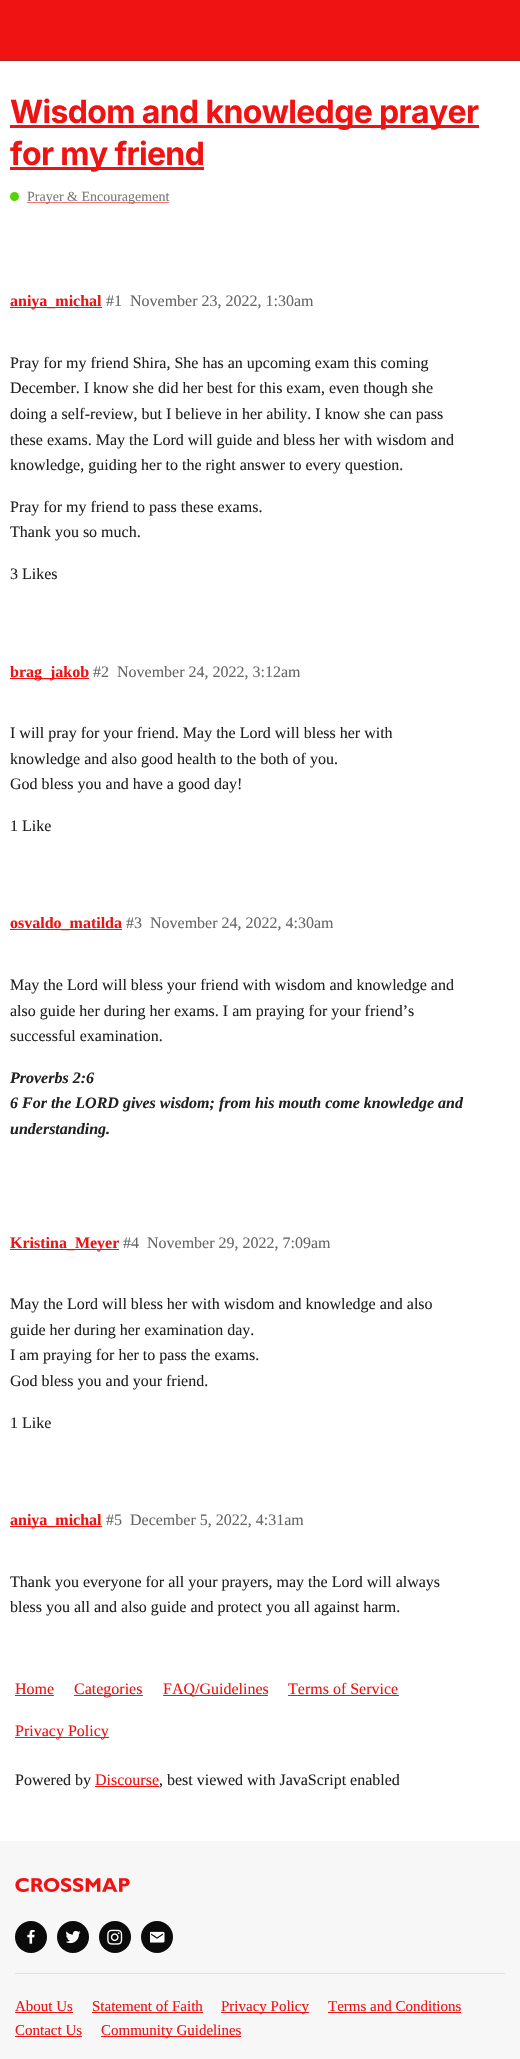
static SkFont makeFont(const char* family, int weight, float size, bool italic = false) {
  SkFontStyle style(weight, SkFontStyle::kNormal_Width,
    italic ? SkFontStyle::kItalic_Slant : SkFontStyle::kUpright_Slant);
  SkFont result(fontMgr->matchFamilyStyle(family, style), size);
  result.setSubpixel(true);
  return result;
}

static void text(SkCanvas* c, const char* s, float x, float y, const SkFont& font, SkColor color) {
  SkPaint ink(SkColor4f::FromColor(color));
  ink.setAntiAlias(true);
  c->drawString(s, x, y, font, ink);
}

static void spacedText(SkCanvas* c, const char* s, float x, float y, const SkFont& font, const SkPaint& ink, float letter, float word) {
  std::vector<SkGlyphID> glyphs(font.countText(s, strlen(s), SkTextEncoding::kUTF8));
  std::vector<float> xs(glyphs.size());
  font.textToGlyphs(s, strlen(s), SkTextEncoding::kUTF8, glyphs);
  font.getXPos(glyphs, xs, x);
  float extra = 0;
  for (size_t i = 0; i < glyphs.size(); i++) {
    xs[i] += extra;
    extra += letter + word * (glyphs[i] == font.unicharToGlyph(' '));
  }
  c->drawTextBlob(SkTextBlob::MakeFromPosHGlyphs(glyphs, xs, y, font), 0, 0, ink);
}

static void box(SkCanvas* c, float l, float t, float r, float b, SkColor color) {
  SkPaint ink(SkColor4f::FromColor(color));
  ink.setAntiAlias(true);
  c->drawRect(SkRect::MakeLTRB(l, t, r, b), ink);
}

static void picture(SkCanvas* c, const char* path, float l, float t, float r, float b) {
  auto image = SkImages::DeferredFromEncodedData(SkData::MakeFromFileName(path));
  c->drawImageRect(image, SkRect::MakeLTRB(l, t, r, b), SkSamplingOptions());
}

void draw(SkCanvas* c) {
  SkPaint paint;
  paint.setAntiAlias(true);
  c->clear(0xffffffff);
  box(c, 0, 0, 520, 60, 0xfff01313);
  box(c, 0, 60, 520, 61, 0xffa52828);
  box(c, 10, 125, 479, 128, 0xfff01313);
  SkFont face1 = makeFont("Inter", 700, 32);
  paint.setColor(0xfff01313);
  spacedText(c, "Wisdom and knowledge prayer", 10, 123, face1, paint, -0.65f, 0);
  box(c, 10, 167, 204, 170, 0xfff01313);
  spacedText(c, "for my friend", 10, 165, face1, paint, -0.65f, 0);
  paint.setColor(0xff55d308);
  c->drawCircle(14.5f, 196.5f, 4.5f, paint);
  box(c, 27, 202, 169, 203, 0xfff67171);
  SkFont face2 = makeFont("Liberation Serif", 400, 14);
  text(c, "Prayer & Encouragement", 27, 201, face2, 0xff7a7a7a);
  box(c, 10, 307, 102, 308, 0xfff01313);
  SkFont face3 = makeFont("Liberation Serif", 700, 16);
  text(c, "aniya_michal", 10, 306, face3, 0xfff01313);
  SkFont face4 = makeFont("Liberation Serif", 400, 16);
  text(c, "#1", 106, 306, face4, 0xff666666);
  text(c, "November 23, 2022, 1:30am", 130, 306, face4, 0xff666666);
  text(c, "Pray for my friend Shira, She has an upcoming exam this coming", 10, 368, face4, 0xff222222);
  text(c, "December. I know she did her best for this exam, even though she", 10, 393, face4, 0xff222222);
  text(c, "doing a self-review, but I believe in her ability. I know she can pass", 10, 419, face4, 0xff222222);
  text(c, "these exams. May the Lord will guide and bless her with wisdom and", 10, 445, face4, 0xff222222);
  text(c, "knowledge, guiding her to the right answer to every question.", 10, 470, face4, 0xff222222);
  text(c, "Pray for my friend to pass these exams.", 10, 512, face4, 0xff222222);
  text(c, "Thank you so much.", 10, 537, face4, 0xff222222);
  text(c, "3 Likes", 10, 579, face4, 0xff222222);
  box(c, 10, 678, 89, 679, 0xfff01313);
  text(c, "brag_jakob", 10, 677, face3, 0xfff01313);
  text(c, "#2", 93, 677, face4, 0xff666666);
  text(c, "November 24, 2022, 3:12am", 117, 677, face4, 0xff666666);
  text(c, "I will pray for your friend. May the Lord will bless her with", 10, 738, face4, 0xff222222);
  text(c, "knowledge and also good health to the both of you.", 10, 764, face4, 0xff222222);
  text(c, "God bless you and have a good day!", 10, 789, face4, 0xff222222);
  text(c, "1 Like", 10, 831, face4, 0xff222222);
  box(c, 10, 929, 122, 930, 0xfff01313);
  text(c, "osvaldo_matilda", 10, 928, face3, 0xfff01313);
  text(c, "#3", 126, 928, face4, 0xff666666);
  text(c, "November 24, 2022, 4:30am", 150, 928, face4, 0xff666666);
  text(c, "May the Lord will bless your friend with wisdom and knowledge and", 10, 990, face4, 0xff222222);
  text(c, "also guide her during her exams. I am praying for your friend’s", 10, 1016, face4, 0xff222222);
  text(c, "successful examination.", 10, 1041, face4, 0xff222222);
  SkFont face5 = makeFont("Liberation Serif", 700, 16, true);
  text(c, "Proverbs 2:6", 10, 1083, face5, 0xff222222);
  text(c, "6 For the LORD gives wisdom; from his mouth come knowledge and", 10, 1108, face5, 0xff222222);
  text(c, "understanding.", 10, 1134, face5, 0xff222222);
  box(c, 10, 1249, 119, 1250, 0xfff01313);
  text(c, "Kristina_Meyer", 10, 1248, face3, 0xfff01313);
  text(c, "#4", 123, 1248, face4, 0xff666666);
  text(c, "November 29, 2022, 7:09am", 147, 1248, face4, 0xff666666);
  text(c, "May the Lord will bless her with wisdom and knowledge and also", 10, 1309, face4, 0xff222222);
  text(c, "guide her during her examination day.", 10, 1335, face4, 0xff222222);
  text(c, "I am praying for her to pass the exams.", 10, 1360, face4, 0xff222222);
  text(c, "God bless you and your friend.", 10, 1386, face4, 0xff222222);
  text(c, "1 Like", 10, 1428, face4, 0xff222222);
  box(c, 10, 1526, 102, 1527, 0xfff01313);
  text(c, "aniya_michal", 10, 1525, face3, 0xfff01313);
  text(c, "#5", 106, 1525, face4, 0xff666666);
  text(c, "December 5, 2022, 4:31am", 130, 1525, face4, 0xff666666);
  text(c, "Thank you everyone for all your prayers, may the Lord will always", 10, 1587, face4, 0xff222222);
  text(c, "bless you all and also guide and protect you all against harm.", 10, 1612, face4, 0xff222222);
  text(c, "Home", 15, 1694, face4, 0xfff01313);
  box(c, 15, 1695, 54, 1696, 0xfff01313);
  box(c, 74, 1695, 143, 1696, 0xfff01313);
  text(c, "Categories", 74, 1694, face4, 0xfff01313);
  box(c, 163, 1695, 268, 1696, 0xfff01313);
  text(c, "FAQ/Guidelines", 163, 1694, face4, 0xfff01313);
  text(c, "Terms of Service", 288, 1694, face4, 0xfff01313);
  box(c, 288, 1695, 399, 1696, 0xfff01313);
  box(c, 15, 1737, 109, 1738, 0xfff01313);
  text(c, "Privacy Policy", 15, 1736, face4, 0xfff01313);
  text(c, "Powered by", 15, 1785, face4, 0xff222222);
  text(c, "Discourse", 95, 1785, face4, 0xfff01313);
  box(c, 95, 1786, 159, 1787, 0xfff01313);
  text(c, ", best viewed with JavaScript enabled", 159, 1785, face4, 0xff222222);
  box(c, 0, 1841, 520, 2059, 0xfff7f7f7);
  picture(c, "img_01.png", 15, 1878, 130, 1892);
  box(c, 15, 1973, 505, 1974, 0xffe0e0e0);
  paint.setColor(0xff0b0b0b);
  c->drawCircle(31, 1937, 16, paint);
  picture(c, "img_02.png", 27, 1930, 35, 1944);
  c->drawCircle(73, 1937, 16, paint);
  picture(c, "img_03.png", 66, 1931, 81, 1944);
  c->drawCircle(115, 1937, 16, paint);
  picture(c, "img_04.png", 107, 1929, 123, 1945);
  c->drawCircle(157, 1937, 16, paint);
  picture(c, "img_05.png", 150, 1931, 165, 1943);
  SkFont face6 = makeFont("Liberation Serif", 400, 15);
  text(c, "About Us", 15, 2011, face6, 0xfff01313);
  box(c, 15, 2012, 73, 2013, 0xfff01313);
  text(c, "Statement of Faith", 92, 2011, face6, 0xfff01313);
  box(c, 92, 2012, 203, 2013, 0xfff01313);
  box(c, 221, 2012, 309, 2013, 0xfff01313);
  text(c, "Privacy Policy", 221, 2011, face6, 0xfff01313);
  text(c, "Terms and Conditions", 328, 2011, face6, 0xfff01313);
  box(c, 328, 2012, 461, 2013, 0xfff01313);
  text(c, "Contact Us", 15, 2035, face6, 0xfff01313);
  box(c, 15, 2036, 82, 2037, 0xfff01313);
  box(c, 101, 2036, 241, 2037, 0xfff01313);
  text(c, "Community Guidelines", 101, 2035, face6, 0xfff01313);
}
